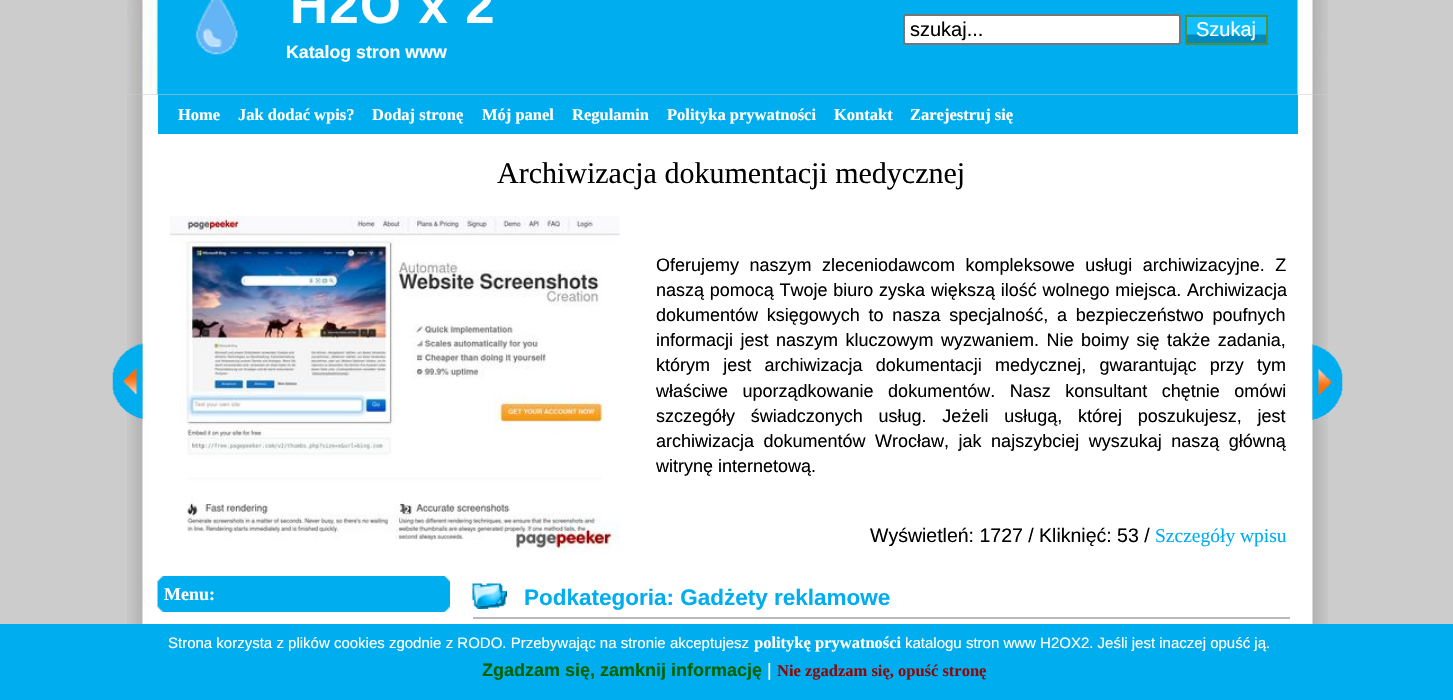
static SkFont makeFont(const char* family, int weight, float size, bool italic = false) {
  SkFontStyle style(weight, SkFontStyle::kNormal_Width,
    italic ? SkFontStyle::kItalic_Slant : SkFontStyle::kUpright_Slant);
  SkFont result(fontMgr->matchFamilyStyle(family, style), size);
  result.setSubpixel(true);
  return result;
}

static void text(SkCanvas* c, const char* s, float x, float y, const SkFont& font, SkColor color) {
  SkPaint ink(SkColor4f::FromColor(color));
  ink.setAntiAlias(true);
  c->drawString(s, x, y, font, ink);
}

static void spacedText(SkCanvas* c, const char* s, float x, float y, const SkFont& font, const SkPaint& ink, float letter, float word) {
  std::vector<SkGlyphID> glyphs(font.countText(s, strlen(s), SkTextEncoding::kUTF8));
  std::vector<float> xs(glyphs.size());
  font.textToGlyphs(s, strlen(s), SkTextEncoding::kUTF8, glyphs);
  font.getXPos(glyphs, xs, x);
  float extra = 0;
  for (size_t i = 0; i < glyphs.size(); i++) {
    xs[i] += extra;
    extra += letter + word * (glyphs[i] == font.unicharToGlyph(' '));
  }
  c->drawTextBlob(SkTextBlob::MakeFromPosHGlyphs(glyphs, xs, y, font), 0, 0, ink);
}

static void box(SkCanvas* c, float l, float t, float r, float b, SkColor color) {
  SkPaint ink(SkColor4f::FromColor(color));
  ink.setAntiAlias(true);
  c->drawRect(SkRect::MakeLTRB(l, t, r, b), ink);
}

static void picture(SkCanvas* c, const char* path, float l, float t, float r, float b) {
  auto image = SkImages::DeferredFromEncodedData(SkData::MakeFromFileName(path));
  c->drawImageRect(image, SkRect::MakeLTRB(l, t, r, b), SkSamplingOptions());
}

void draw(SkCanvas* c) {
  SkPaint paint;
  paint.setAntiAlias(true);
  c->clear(0xffcccccc);
  picture(c, "img_01.png", 127, 95, 1328, 624);
  picture(c, "img_02.png", 127, 0, 1328, 95);
  picture(c, "img_03.png", 195, 0, 239, 55);
  SkFont face1 = makeFont("Liberation Sans", 700, 52.5f);
  paint.setColor(0xffffffff);
  spacedText(c, "H2O x 2", 290, 23, face1, paint, 1.5f, 0);
  SkFont face2 = makeFont("Liberation Sans", 700, 17.75f);
  text(c, "Katalog stron www", 286, 58, face2, 0xffffffff);
  c->drawRoundRect(SkRect::MakeLTRB(904, 15, 1180, 44), 2, 2, paint);
  paint.setStyle(SkPaint::kStroke_Style);
  paint.setStrokeWidth(2);
  paint.setColor(0xff767676);
  c->drawRoundRect(SkRect::MakeLTRB(904, 15, 1180, 44), 2, 2, paint);
  SkFont face3 = makeFont("Liberation Sans", 400, 20);
  text(c, "szukaj...", 910, 36, face3, 0xff000000);
  picture(c, "img_04.png", 1187, 17, 1266, 43);
  paint.setColor(0xff558e31);
  c->drawRect(SkRect::MakeLTRB(1186, 16, 1267, 44), paint);
  text(c, "Szukaj", 1196, 36, face3, 0xffffffff);
  box(c, 158, 95, 1298, 134, 0xff00adef);
  SkFont face4 = makeFont("Liberation Serif", 700, 16.5f);
  text(c, "Home", 178, 120, face4, 0xffffffff);
  text(c, "Jak dodać wpis?", 238, 120, face4, 0xffffffff);
  text(c, "Dodaj stronę", 372, 120, face4, 0xffffffff);
  text(c, "Mój panel", 482, 120, face4, 0xffffffff);
  text(c, "Regulamin", 572, 120, face4, 0xffffffff);
  text(c, "Polityka prywatności", 667, 120, face4, 0xffffffff);
  text(c, "Kontakt", 834, 120, face4, 0xffffffff);
  text(c, "Zarejestruj się", 910, 120, face4, 0xffffffff);
  picture(c, "img_05.png", 112, 343, 143, 420);
  SkFont face5 = makeFont("Liberation Serif", 400, 30);
  text(c, "Archiwizacja dokumentacji medycznej", 497, 183, face5, 0xff000000);
  picture(c, "img_06.png", 169, 216, 620, 554);
  SkFont face6 = makeFont("Liberation Sans", 400, 18);
  paint.setStyle(SkPaint::kFill_Style);
  paint.setColor(0xff000000);
  spacedText(c, "Oferujemy naszym zleceniodawcom kompleksowe usługi archiwizacyjne. Z", 656, 271, face6, paint, 0, 5.5f);
  spacedText(c, "naszą pomocą Twoje biuro zyska większą ilość wolnego miejsca. Archiwizacja", 656, 296, face6, paint, 0, 0.75f);
  spacedText(c, "dokumentów księgowych to nasza specjalność, a bezpieczeństwo poufnych", 656, 321, face6, paint, 0, 3.75f);
  spacedText(c, "informacji jest naszym kluczowym wyzwaniem. Nie boimy się także zadania,", 656, 346, face6, paint, 0, 2.5f);
  spacedText(c, "którym jest archiwizacja dokumentacji medycznej, gwarantując przy tym", 656, 371, face6, paint, 0, 8.25f);
  spacedText(c, "właściwe uporządkowanie dokumentów. Nasz konsultant chętnie omówi", 656, 397, face6, paint, 0, 9.5f);
  spacedText(c, "szczegóły świadczonych usług. Jeżeli usługą, której poszukujesz, jest", 656, 422, face6, paint, 0, 10.75f);
  spacedText(c, "archiwizacja dokumentów Wrocław, jak najszybciej wyszukaj naszą główną", 656, 447, face6, paint, 0, 4.5f);
  text(c, "witrynę internetową.", 656, 472, face6, 0xff000000);
  SkFont face7 = makeFont("Liberation Sans", 400, 19.5f);
  text(c, "Wyświetleń: 1727 / Kliknięć: 53 /", 870, 542, face7, 0xff000000);
  SkFont face8 = makeFont("Liberation Serif", 400, 19.5f);
  text(c, "Szczegóły wpisu", 1155, 542, face8, 0xff00adef);
  picture(c, "img_07.png", 1294, 233, 1295, 235);
  picture(c, "img_08.png", 1312, 344, 1343, 420);
  picture(c, "img_09.png", 157, 576, 450, 612);
  SkFont face9 = makeFont("Liberation Serif", 700, 18);
  text(c, "Menu:", 164, 600, face9, 0xffffffff);
  picture(c, "img_10.png", 472, 583, 507, 609);
  box(c, 473, 617, 1290, 619, 0xffbababa);
  SkFont face10 = makeFont("Liberation Sans", 700, 22.5f);
  text(c, "Podkategoria: Gadżety reklamowe", 524, 605, face10, 0xff00adef);
  box(c, 0, 624, 1453, 700, 0xff00adef);
  SkFont face11 = makeFont("Liberation Sans", 400, 15);
  text(c, "Strona korzysta z plików cookies zgodnie z RODO. Przebywając na stronie akceptujesz", 168, 648, face11, 0xffffffff);
  text(c, "politykę prywatności", 754, 648, face4, 0xffffffff);
  text(c, "katalogu stron www H2OX2. Jeśli jest inaczej opuść ją.", 905, 648, face11, 0xffffffff);
  SkFont face12 = makeFont("Liberation Sans", 700, 18);
  text(c, "Zgadzam się, zamknij informację", 482, 676, face12, 0xff006200);
  text(c, "|", 767, 676, face6, 0xffffffff);
  text(c, "Nie zgadzam się, opuść stronę", 777, 676, face4, 0xff8a0a0a);
}
